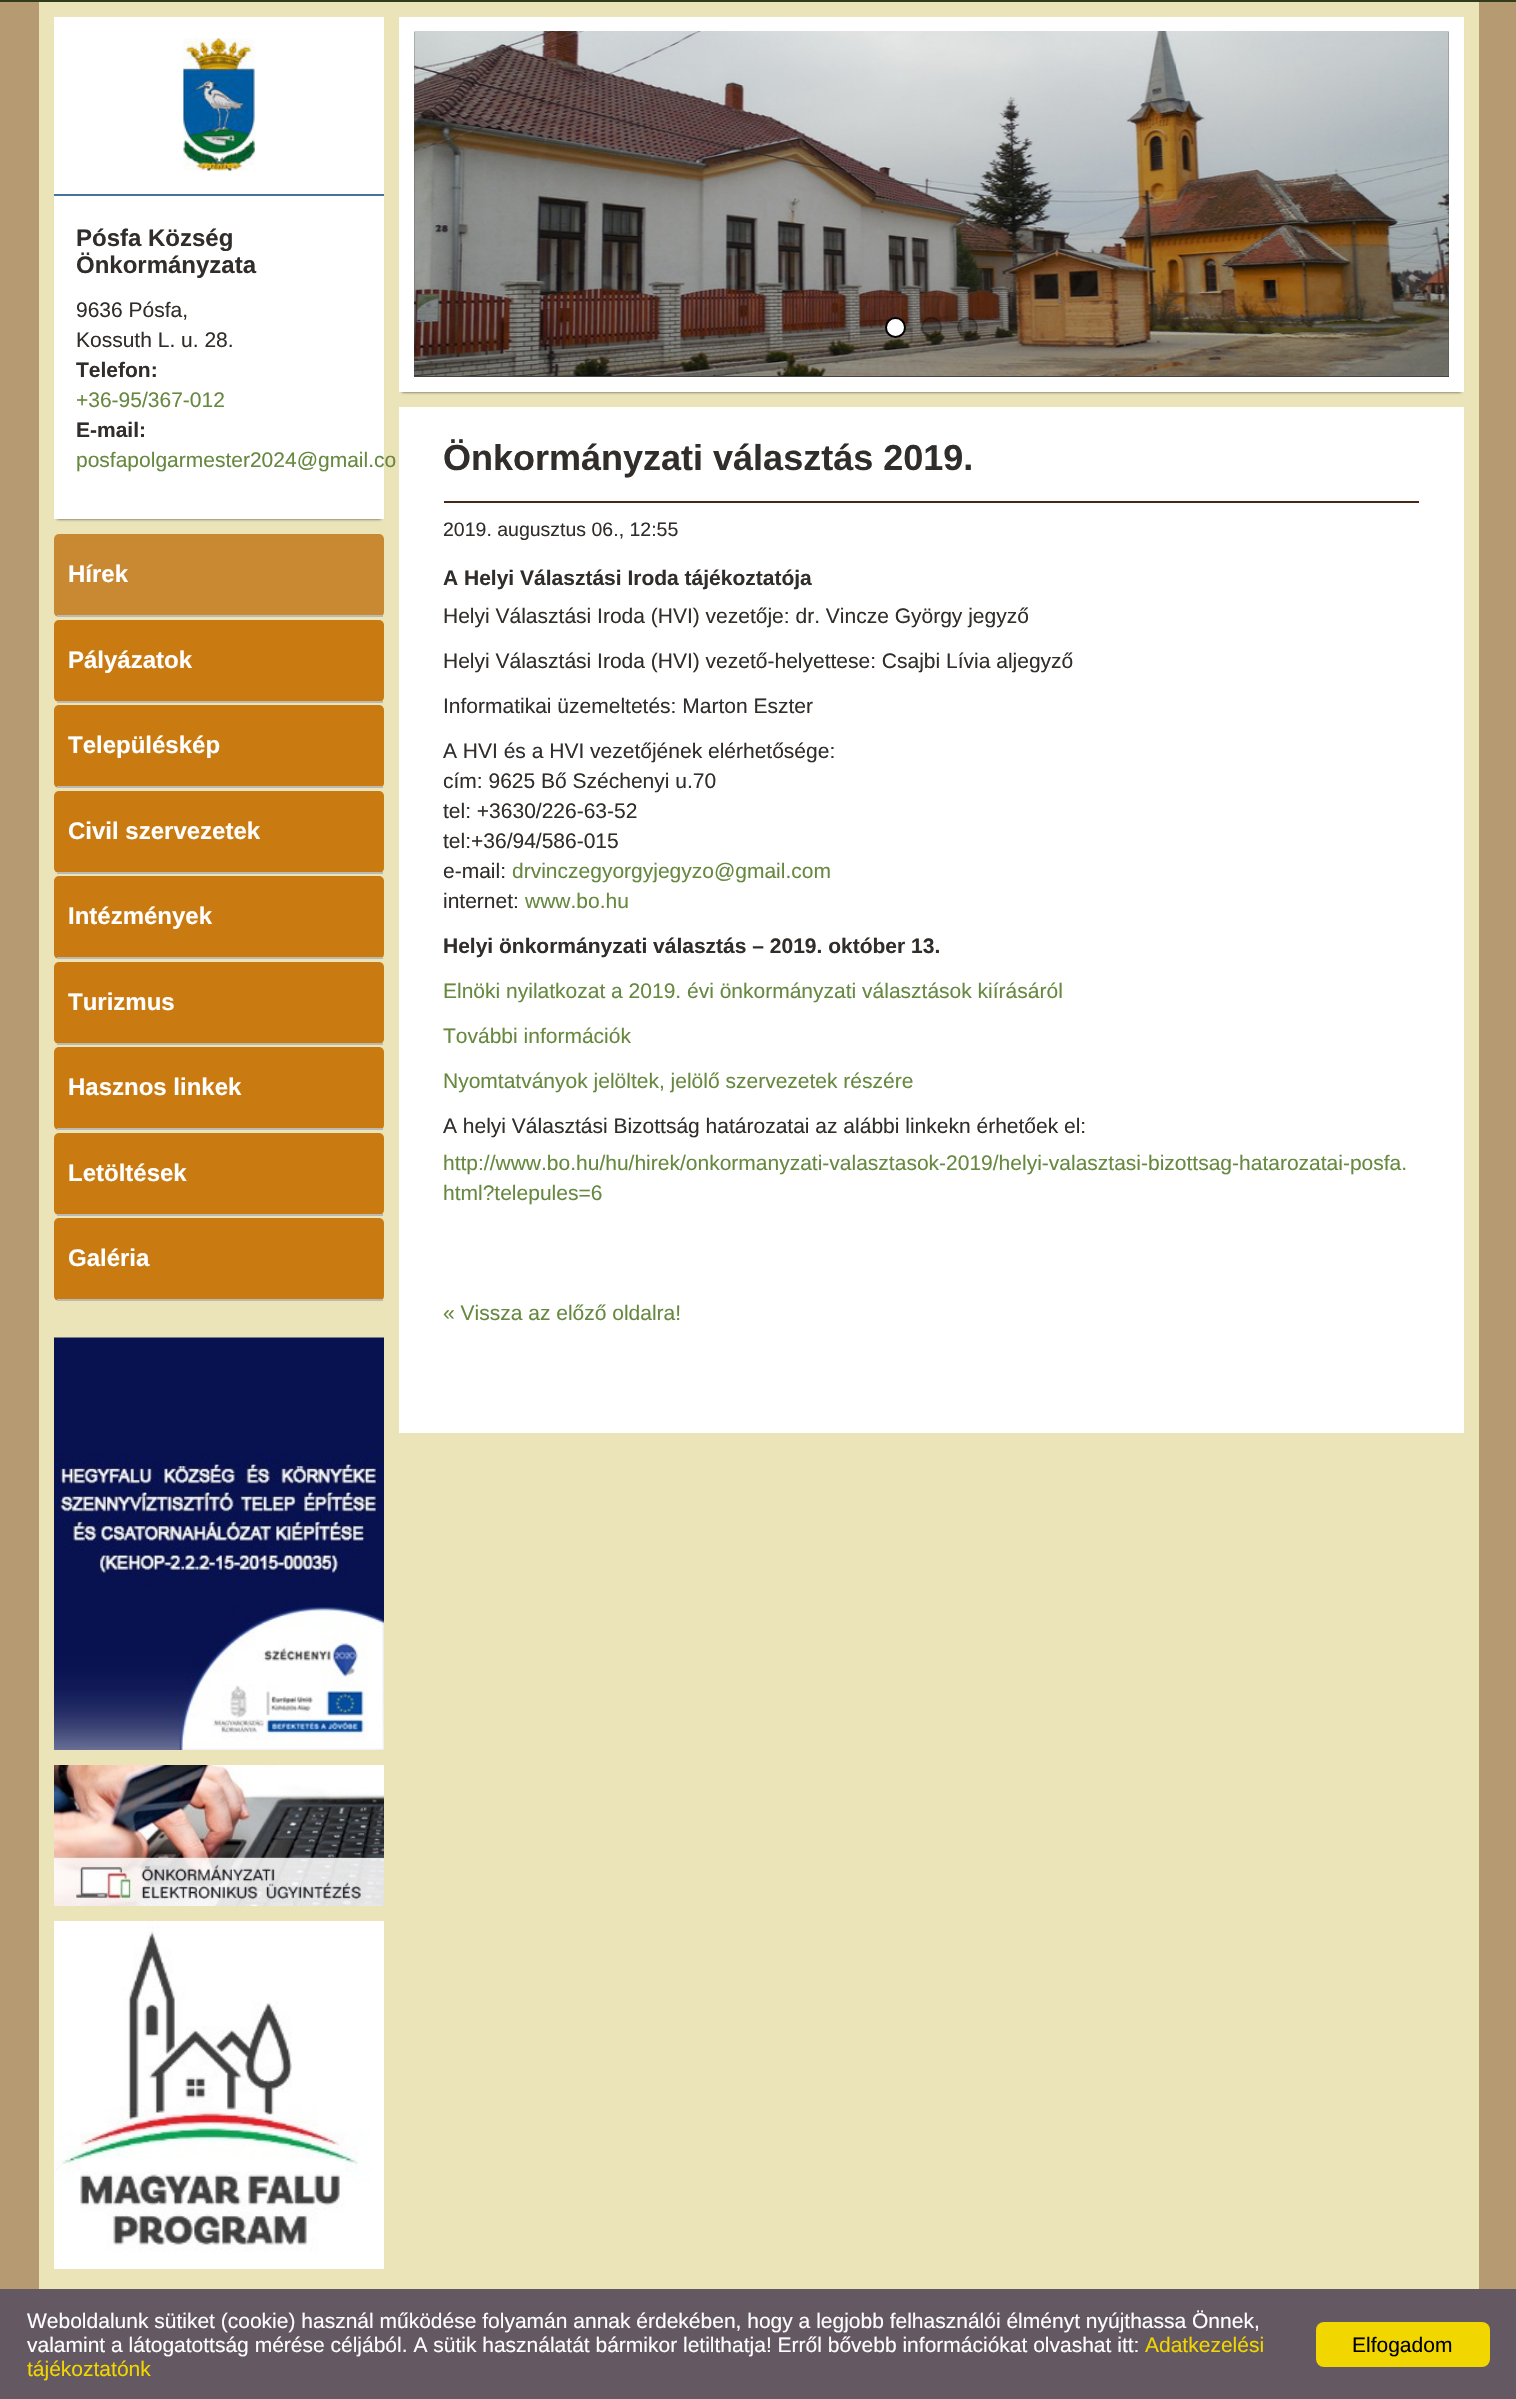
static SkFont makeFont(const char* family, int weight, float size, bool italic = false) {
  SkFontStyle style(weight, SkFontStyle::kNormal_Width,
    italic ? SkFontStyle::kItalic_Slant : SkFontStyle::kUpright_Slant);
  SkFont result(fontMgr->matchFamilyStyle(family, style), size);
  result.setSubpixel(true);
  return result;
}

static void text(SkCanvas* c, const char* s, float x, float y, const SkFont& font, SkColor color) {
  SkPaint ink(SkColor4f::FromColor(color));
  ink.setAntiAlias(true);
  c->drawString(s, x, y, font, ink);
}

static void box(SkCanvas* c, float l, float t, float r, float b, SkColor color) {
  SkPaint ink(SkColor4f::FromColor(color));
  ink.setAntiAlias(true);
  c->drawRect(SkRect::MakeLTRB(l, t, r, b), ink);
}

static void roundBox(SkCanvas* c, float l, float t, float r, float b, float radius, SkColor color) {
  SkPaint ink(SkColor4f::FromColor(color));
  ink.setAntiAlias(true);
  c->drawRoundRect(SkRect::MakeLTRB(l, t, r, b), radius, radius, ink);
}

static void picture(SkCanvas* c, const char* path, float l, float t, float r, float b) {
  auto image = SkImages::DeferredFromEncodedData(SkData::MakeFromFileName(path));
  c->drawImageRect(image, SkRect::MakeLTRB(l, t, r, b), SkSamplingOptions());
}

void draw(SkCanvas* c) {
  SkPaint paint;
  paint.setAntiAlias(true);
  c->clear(0xffb69a71);
  box(c, 0, 0, 1516, 2, 0xff333c1a);
  box(c, 39, 2, 1479, 2289, 0xffece4b9);
  box(c, 54, 17, 384, 194, 0xffffffff);
  paint.setColor(0xff434343);
  paint.setMaskFilter(SkMaskFilter::MakeBlur(kNormal_SkBlurStyle, 1.5f));
  c->drawRect(SkRect::MakeLTRB(57, 201, 381, 519), paint);
  paint.setMaskFilter(nullptr);
  box(c, 54, 194, 384, 196, 0xff44749d);
  picture(c, "img_01.png", 183, 38, 255, 171);
  box(c, 54, 196, 384, 519, 0xffffffff);
  SkFont face1 = makeFont("Liberation Sans", 700, 24);
  text(c, "Pósfa Község", 76, 246, face1, 0xff312d2a);
  text(c, "Önkormányzata", 76, 273, face1, 0xff312d2a);
  SkFont face2 = makeFont("Liberation Sans", 400, 21);
  text(c, "9636 Pósfa,", 76, 317, face2, 0xff312d2a);
  text(c, "Kossuth L. u. 28.", 76, 347, face2, 0xff312d2a);
  SkFont face3 = makeFont("Liberation Sans", 700, 21);
  text(c, "Telefon:", 76, 377, face3, 0xff312d2a);
  text(c, "+36-95/367-012", 76, 407, face2, 0xff66883f);
  text(c, "E-mail:", 76, 437, face3, 0xff312d2a);
  text(c, "posfapolgarmester2024@gmail.co", 76, 467, face2, 0xff66883f);
  roundBox(c, 54, 534, 384, 617, 5, 0xffc98932);
  box(c, 57, 615, 383, 617, 0xffbcb9b3);
  text(c, "Hírek", 68, 582, face1, 0xffffffff);
  roundBox(c, 54, 620, 384, 702, 5, 0xffc97b11);
  box(c, 57, 701, 383, 703, 0xffbcb9b3);
  text(c, "Pályázatok", 68, 668, face1, 0xffffffff);
  roundBox(c, 54, 705, 384, 788, 5, 0xffc97b11);
  box(c, 57, 786, 383, 788, 0xffbcb9b3);
  text(c, "Településkép", 68, 753, face1, 0xffffffff);
  roundBox(c, 54, 791, 384, 873, 5, 0xffc97b11);
  box(c, 57, 872, 383, 874, 0xffbcb9b3);
  text(c, "Civil szervezetek", 68, 839, face1, 0xffffffff);
  roundBox(c, 54, 876, 384, 959, 5, 0xffc97b11);
  box(c, 57, 957, 383, 959, 0xffbcb9b3);
  text(c, "Intézmények", 68, 924, face1, 0xffffffff);
  roundBox(c, 54, 962, 384, 1044, 5, 0xffc97b11);
  box(c, 57, 1043, 383, 1045, 0xffbcb9b3);
  text(c, "Turizmus", 68, 1010, face1, 0xffffffff);
  roundBox(c, 54, 1047, 384, 1130, 5, 0xffc97b11);
  box(c, 57, 1128, 383, 1130, 0xffbcb9b3);
  text(c, "Hasznos linkek", 68, 1095, face1, 0xffffffff);
  roundBox(c, 54, 1133, 384, 1215, 5, 0xffc97b11);
  box(c, 57, 1214, 383, 1216, 0xffbcb9b3);
  text(c, "Letöltések", 68, 1181, face1, 0xffffffff);
  roundBox(c, 54, 1218, 384, 1301, 5, 0xffc97b11);
  box(c, 57, 1299, 383, 1301, 0xffbcb9b3);
  text(c, "Galéria", 68, 1266, face1, 0xffffffff);
  picture(c, "img_02.png", 54, 1337, 384, 1750);
  picture(c, "img_03.png", 54, 1765, 384, 1906);
  picture(c, "img_04.png", 54, 1921, 384, 2269);
  paint.setMaskFilter(SkMaskFilter::MakeBlur(kNormal_SkBlurStyle, 1.5f));
  c->drawRect(SkRect::MakeLTRB(402, 23, 1461, 392), paint);
  paint.setMaskFilter(nullptr);
  paint.setStyle(SkPaint::kStroke_Style);
  paint.setStrokeWidth(15);
  paint.setColor(0xffffffff);
  c->drawRect(SkRect::MakeLTRB(406.5f, 24.5f, 1456.5f, 384.5f), paint);
  picture(c, "img_05.png", 414, 31, 1449, 376);
  paint.setStyle(SkPaint::kFill_Style);
  c->drawCircle(895.5f, 327.5f, 9.5f, paint);
  paint.setStyle(SkPaint::kStroke_Style);
  paint.setStrokeWidth(2);
  paint.setColor(0xff000000);
  c->drawCircle(895.5f, 327.5f, 9.5f, paint);
  paint.setStyle(SkPaint::kFill_Style);
  paint.setColor(0x33000000);
  c->drawCircle(931.5f, 327.5f, 10.5f, paint);
  paint.setStyle(SkPaint::kStroke_Style);
  c->drawCircle(931.5f, 327.5f, 9.5f, paint);
  paint.setStyle(SkPaint::kFill_Style);
  c->drawCircle(967.5f, 327.5f, 10.5f, paint);
  paint.setStyle(SkPaint::kStroke_Style);
  c->drawCircle(967.5f, 327.5f, 9.5f, paint);
  box(c, 399, 407, 1464, 1433, 0xffffffff);
  box(c, 444, 501, 1419, 503, 0xff482714);
  SkFont face4 = makeFont("Liberation Sans", 700, 36);
  text(c, "Önkormányzati választás 2019.", 443, 470, face4, 0xff312d2a);
  SkFont face5 = makeFont("Liberation Sans", 400, 19.5f);
  text(c, "2019. augusztus 06., 12:55", 443, 536, face5, 0xff312d2a);
  text(c, "A Helyi Választási Iroda tájékoztatója", 443, 585, face3, 0xff312d2a);
  text(c, "Helyi Választási Iroda (HVI) vezetője: dr. Vincze György jegyző", 443, 623, face2, 0xff312d2a);
  text(c, "Helyi Választási Iroda (HVI) vezető-helyettese: Csajbi Lívia aljegyző", 443, 668, face2, 0xff312d2a);
  text(c, "Informatikai üzemeltetés: Marton Eszter", 443, 713, face2, 0xff312d2a);
  text(c, "A HVI és a HVI vezetőjének elérhetősége:", 443, 758, face2, 0xff312d2a);
  text(c, "cím: 9625 Bő Széchenyi u.70", 443, 788, face2, 0xff312d2a);
  text(c, "tel: +3630/226-63-52", 443, 818, face2, 0xff312d2a);
  text(c, "tel:+36/94/586-015", 443, 848, face2, 0xff312d2a);
  text(c, "e-mail:", 443, 878, face2, 0xff312d2a);
  text(c, "drvinczegyorgyjegyzo@gmail.com", 512, 878, face2, 0xff66883f);
  text(c, "internet:", 443, 908, face2, 0xff312d2a);
  text(c, "www.bo.hu", 525, 908, face2, 0xff66883f);
  text(c, "Helyi önkormányzati választás – 2019. október 13.", 443, 953, face3, 0xff312d2a);
  text(c, "Elnöki nyilatkozat a 2019. évi önkormányzati választások kiírásáról", 443, 998, face2, 0xff66883f);
  text(c, "További információk", 443, 1043, face2, 0xff66883f);
  text(c, "Nyomtatványok jelöltek, jelölő szervezetek részére", 443, 1088, face2, 0xff66883f);
  text(c, "A helyi Választási Bizottság határozatai az alábbi linkekn érhetőek el:", 443, 1133, face2, 0xff312d2a);
  text(c, "http://www.bo.hu/hu/hirek/onkormanyzati-valasztasok-2019/helyi-valasztasi-bizottsag-hatarozatai-posfa.", 443, 1170, face2, 0xff66883f);
  text(c, "html?telepules=6", 443, 1200, face2, 0xff66883f);
  text(c, "« Vissza az előző oldalra!", 443, 1320, face2, 0xff66883f);
  box(c, 0, 2289, 1516, 2399, 0xff645862);
  text(c, "Weboldalunk sütiket (cookie) használ működése folyamán annak érdekében, hogy a legjobb felhasználói élményt nyújthassa Önnek,", 27, 2328, face2, 0xffffffff);
  text(c, "valamint a látogatottság mérése céljából. A sütik használatát bármikor letilthatja! Erről bővebb információkat olvashat itt:", 27, 2352, face2, 0xffffffff);
  text(c, "Adatkezelési", 1145, 2352, face2, 0xfff1d600);
  text(c, "tájékoztatónk", 27, 2376, face2, 0xfff1d600);
  roundBox(c, 1316, 2322, 1490, 2367, 8, 0xfff1d600);
  text(c, "Elfogadom", 1352, 2352, face2, 0xff000000);
}
